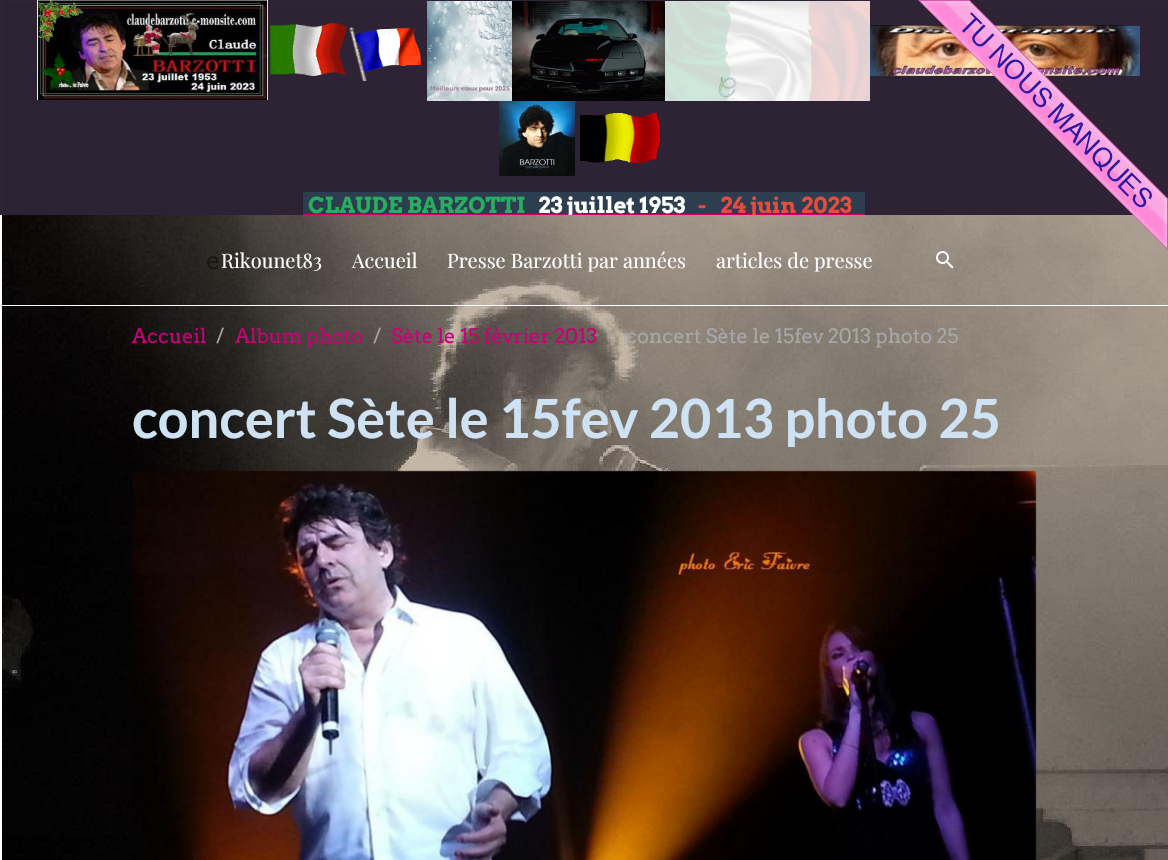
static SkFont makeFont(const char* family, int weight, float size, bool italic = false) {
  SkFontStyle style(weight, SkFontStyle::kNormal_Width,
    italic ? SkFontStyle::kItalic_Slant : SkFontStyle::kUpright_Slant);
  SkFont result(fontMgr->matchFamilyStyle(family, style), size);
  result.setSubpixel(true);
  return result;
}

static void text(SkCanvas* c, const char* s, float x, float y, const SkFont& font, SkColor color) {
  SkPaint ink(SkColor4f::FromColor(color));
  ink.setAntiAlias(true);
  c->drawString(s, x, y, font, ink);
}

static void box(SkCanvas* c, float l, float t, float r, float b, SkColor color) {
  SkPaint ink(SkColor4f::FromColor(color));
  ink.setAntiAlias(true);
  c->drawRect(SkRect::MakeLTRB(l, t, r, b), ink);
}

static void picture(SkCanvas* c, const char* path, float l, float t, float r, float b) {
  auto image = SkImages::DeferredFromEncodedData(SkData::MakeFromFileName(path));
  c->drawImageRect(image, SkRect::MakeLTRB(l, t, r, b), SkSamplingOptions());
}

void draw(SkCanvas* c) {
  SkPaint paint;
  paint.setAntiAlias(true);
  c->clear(0xffffffff);
  picture(c, "img_01.png", 0, 0, 1168, 860);
  box(c, 0, 0, 1168, 215, 0xfc2c2133);
  picture(c, "img_02.png", 37, 0, 268, 100);
  picture(c, "img_03.png", 270, 23, 348, 76);
  picture(c, "img_04.png", 349, 27, 422, 81);
  picture(c, "img_05.png", 427, 1, 512, 101);
  picture(c, "img_06.png", 512, 1, 665, 101);
  picture(c, "img_07.png", 665, 1, 870, 101);
  picture(c, "img_08.png", 870, 25, 1140, 76);
  picture(c, "img_09.png", 499, 101, 575, 176);
  picture(c, "img_10.png", 580, 113, 660, 163);
  box(c, 303, 192, 865, 214, 0xff2c3e50);
  SkFont face1 = makeFont("Arvo", 700, 22);
  text(c, "CLAUDE BARZOTTI", 308, 213, face1, 0xff27ae60);
  box(c, 303, 214, 865, 215, 0xffc90076);
  c->save();
  c->clipRect(SkRect::MakeLTRB(0, 0, 1168, 215));
  text(c, "23 juillet 1953", 538, 213, face1, 0xffffffff);
  c->restore();
  text(c, "-", 698, 213, face1, 0xffe74c3c);
  c->save();
  c->clipRect(SkRect::MakeLTRB(0, 0, 1168, 215));
  text(c, "24 juin 2023", 720, 213, face1, 0xffe74c3c);
  c->restore();
  picture(c, "img_11.png", 918, 0, 1168, 250);
  box(c, 0, 305, 1168, 306, 0xffffffff);
  SkFont face2 = makeFont("Arvo", 400, 25);
  text(c, "e", 206, 269, face2, 0xff191815);
  SkFont face3 = makeFont("Playfair Display", 400, 20);
  text(c, "Rikounet83", 221, 268, face3, 0xffffffff);
  text(c, "Accueil", 352, 268, face3, 0xffffffff);
  text(c, "Presse Barzotti par années", 447, 268, face3, 0xffffffff);
  text(c, "articles de presse", 716, 268, face3, 0xffffffff);
  picture(c, "img_12.png", 936, 251, 954, 269);
  SkFont face4 = makeFont("Arvo", 400, 20);
  text(c, "Accueil", 132, 343, face4, 0xffc90076);
  text(c, "/", 216, 343, face4, 0xffa7a7a7);
  text(c, "Album photo", 235, 343, face4, 0xffc90076);
  text(c, "/", 373, 343, face4, 0xffa7a7a7);
  text(c, "Sète le 15 février 2013", 391, 343, face4, 0xffc90076);
  text(c, "concert Sète le 15fev 2013 photo 25", 626, 343, face4, 0xffa7a7a7);
  SkFont face5 = makeFont("Lato", 700, 54);
  text(c, "concert Sète le 15fev 2013 photo 25", 132, 438, face5, 0xffcfe2f3);
  picture(c, "img_13.png", 132, 470, 1037, 860);
}
